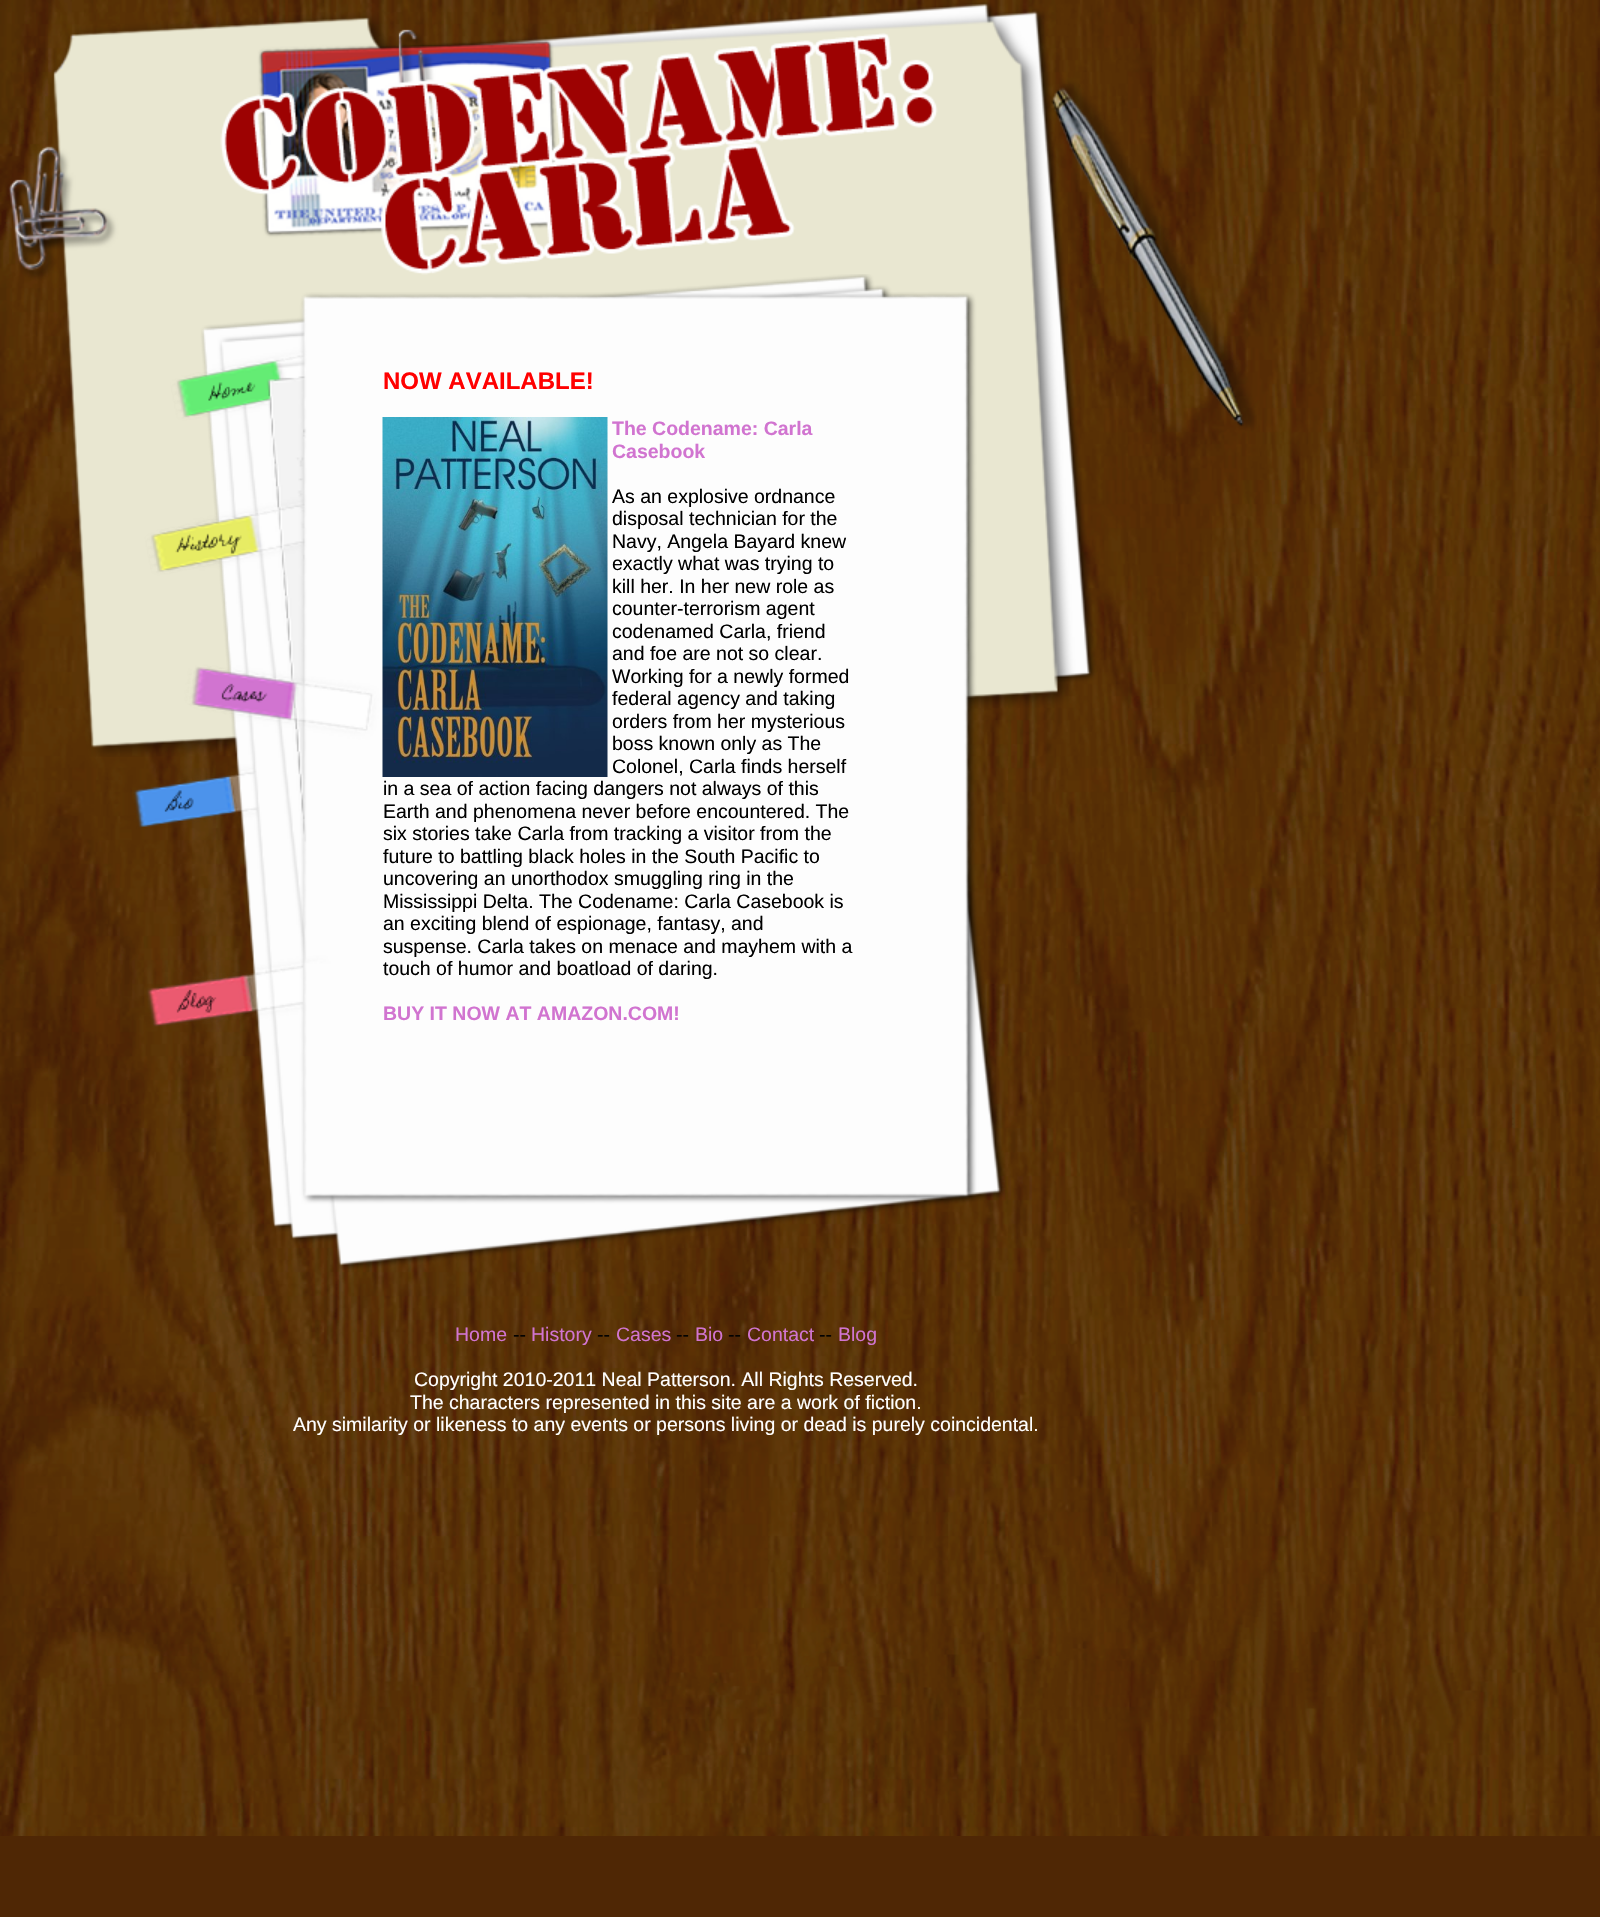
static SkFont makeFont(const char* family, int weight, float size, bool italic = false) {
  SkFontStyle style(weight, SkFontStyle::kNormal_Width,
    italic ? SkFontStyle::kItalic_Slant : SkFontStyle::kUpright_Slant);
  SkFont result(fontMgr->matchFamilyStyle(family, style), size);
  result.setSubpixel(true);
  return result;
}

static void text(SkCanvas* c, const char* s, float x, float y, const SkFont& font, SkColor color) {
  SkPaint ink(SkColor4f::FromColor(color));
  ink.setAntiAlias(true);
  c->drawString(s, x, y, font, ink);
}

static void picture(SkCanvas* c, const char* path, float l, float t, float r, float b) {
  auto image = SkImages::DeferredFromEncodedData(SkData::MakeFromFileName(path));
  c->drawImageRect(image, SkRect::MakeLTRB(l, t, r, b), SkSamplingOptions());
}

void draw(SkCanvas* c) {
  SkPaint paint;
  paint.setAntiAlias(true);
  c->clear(0xff4f2705);
  picture(c, "img_01.png", 0, 0, 1600, 1836);
  picture(c, "img_02.png", 8, 2, 1257, 757);
  picture(c, "img_03.png", 133, 274, 1007, 1270);
  SkFont face1 = makeFont("Liberation Sans", 700, 24);
  text(c, "NOW AVAILABLE!", 383, 389, face1, 0xffff0000);
  picture(c, "img_04.png", 382, 417, 608, 777);
  SkFont face2 = makeFont("Liberation Sans", 700, 19.5f);
  text(c, "The Codename: Carla", 612, 435, face2, 0xffd174d0);
  text(c, "Casebook", 612, 458, face2, 0xffd174d0);
  SkFont face3 = makeFont("Liberation Sans", 400, 19.5f);
  text(c, "As an explosive ordnance", 612, 503, face3, 0xff000000);
  text(c, "disposal technician for the", 612, 525, face3, 0xff000000);
  text(c, "Navy, Angela Bayard knew", 612, 548, face3, 0xff000000);
  text(c, "exactly what was trying to", 612, 570, face3, 0xff000000);
  text(c, "kill her. In her new role as", 612, 593, face3, 0xff000000);
  text(c, "counter-terrorism agent", 612, 615, face3, 0xff000000);
  text(c, "codenamed Carla, friend", 612, 638, face3, 0xff000000);
  text(c, "and foe are not so clear.", 612, 660, face3, 0xff000000);
  text(c, "Working for a newly formed", 612, 683, face3, 0xff000000);
  text(c, "federal agency and taking", 612, 705, face3, 0xff000000);
  text(c, "orders from her mysterious", 612, 728, face3, 0xff000000);
  text(c, "boss known only as The", 612, 750, face3, 0xff000000);
  text(c, "Colonel, Carla finds herself", 612, 773, face3, 0xff000000);
  text(c, "in a sea of action facing dangers not always of this", 383, 795, face3, 0xff000000);
  text(c, "Earth and phenomena never before encountered. The", 383, 818, face3, 0xff000000);
  text(c, "six stories take Carla from tracking a visitor from the", 383, 840, face3, 0xff000000);
  text(c, "future to battling black holes in the South Pacific to", 383, 863, face3, 0xff000000);
  text(c, "uncovering an unorthodox smuggling ring in the", 383, 885, face3, 0xff000000);
  text(c, "Mississippi Delta. The Codename: Carla Casebook is", 383, 908, face3, 0xff000000);
  text(c, "an exciting blend of espionage, fantasy, and", 383, 930, face3, 0xff000000);
  text(c, "suspense. Carla takes on menace and mayhem with a", 383, 953, face3, 0xff000000);
  text(c, "touch of humor and boatload of daring.", 383, 975, face3, 0xff000000);
  text(c, "BUY IT NOW AT AMAZON.COM!", 383, 1020, face2, 0xffd174d0);
  text(c, "Home", 455, 1341, face3, 0xffd174d0);
  text(c, "--", 513, 1341, face3, 0xff000000);
  text(c, "History", 531, 1341, face3, 0xffd174d0);
  text(c, "--", 597, 1341, face3, 0xff000000);
  text(c, "Cases", 616, 1341, face3, 0xffd174d0);
  text(c, "--", 676, 1341, face3, 0xff000000);
  text(c, "Bio", 695, 1341, face3, 0xffd174d0);
  text(c, "--", 728, 1341, face3, 0xff000000);
  text(c, "Contact", 747, 1341, face3, 0xffd174d0);
  text(c, "--", 819, 1341, face3, 0xff000000);
  text(c, "Blog", 838, 1341, face3, 0xffd174d0);
  text(c, "Copyright 2010-2011 Neal Patterson. All Rights Reserved.", 414, 1386, face3, 0xffffffff);
  text(c, "The characters represented in this site are a work of fiction.", 410, 1409, face3, 0xffffffff);
  text(c, "Any similarity or likeness to any events or persons living or dead is purely coincidental.", 293, 1431, face3, 0xffffffff);
}
